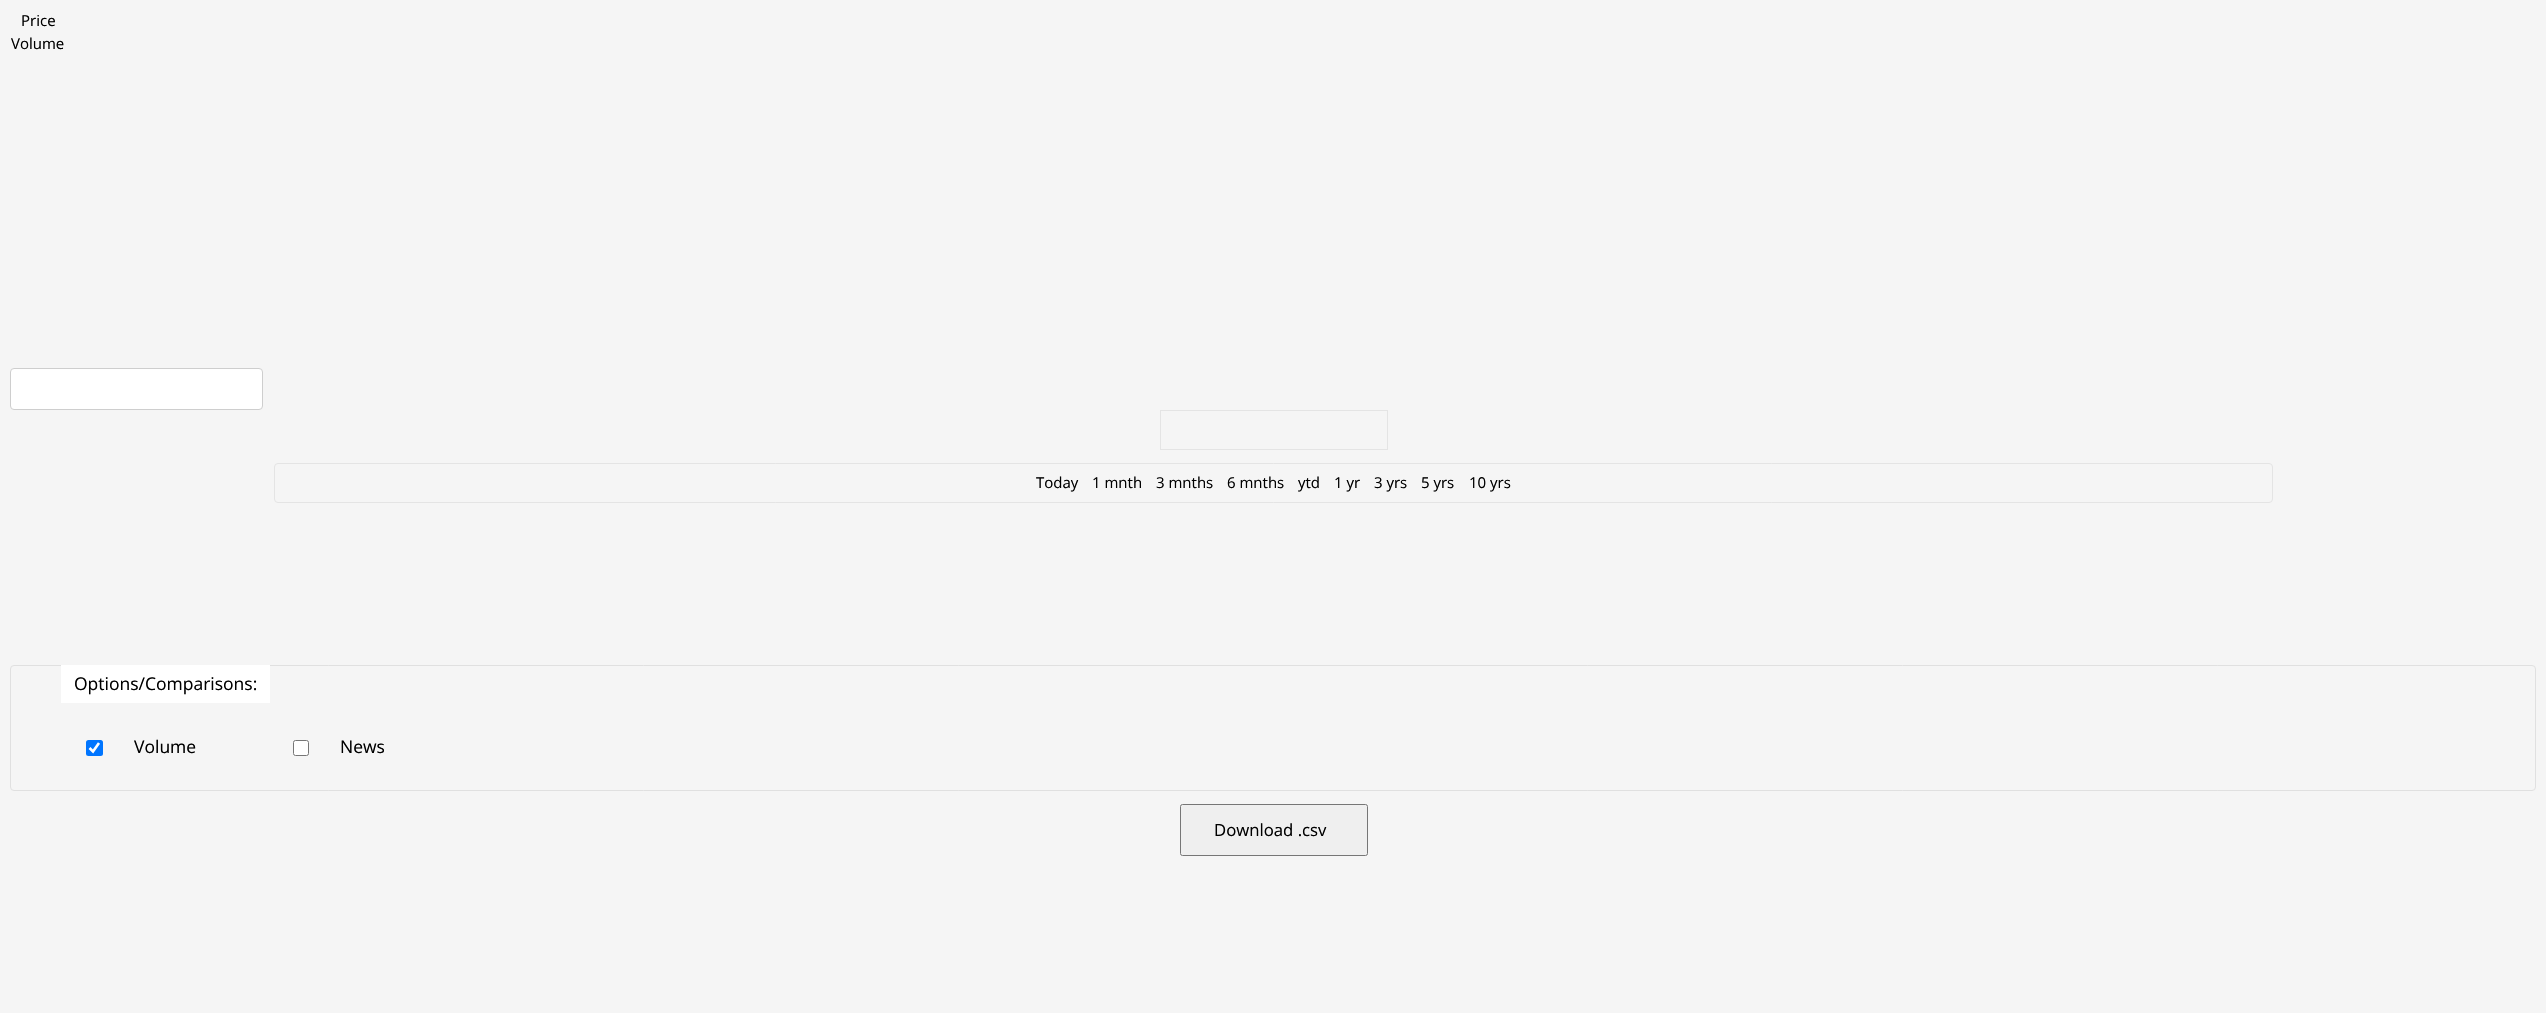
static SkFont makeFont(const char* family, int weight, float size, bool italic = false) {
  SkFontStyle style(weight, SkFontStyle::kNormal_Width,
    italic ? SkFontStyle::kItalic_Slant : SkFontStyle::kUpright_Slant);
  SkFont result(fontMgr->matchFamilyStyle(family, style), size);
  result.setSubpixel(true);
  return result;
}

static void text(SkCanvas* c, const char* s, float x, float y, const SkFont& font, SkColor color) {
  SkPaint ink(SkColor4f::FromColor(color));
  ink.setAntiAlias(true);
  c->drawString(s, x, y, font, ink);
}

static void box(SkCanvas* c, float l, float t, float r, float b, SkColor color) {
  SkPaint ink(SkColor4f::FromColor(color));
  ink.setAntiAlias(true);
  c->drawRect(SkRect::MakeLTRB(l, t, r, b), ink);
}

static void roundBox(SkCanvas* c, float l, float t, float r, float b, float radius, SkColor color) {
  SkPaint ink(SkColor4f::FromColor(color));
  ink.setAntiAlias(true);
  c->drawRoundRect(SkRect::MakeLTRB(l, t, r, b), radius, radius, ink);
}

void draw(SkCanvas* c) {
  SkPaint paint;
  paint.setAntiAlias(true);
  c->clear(0xfff5f5f5);
  SkFont face1 = makeFont("Open Sans", 400, 15);
  text(c, "Price", 21, 26, face1, 0xff000000);
  text(c, "Volume", 11, 49, face1, 0xff000000);
  paint.setColor(0xffffffff);
  c->drawRoundRect(SkRect::MakeLTRB(10.5f, 368.5f, 262.5f, 409.5f), 3.5f, 3.5f, paint);
  paint.setStyle(SkPaint::kStroke_Style);
  paint.setStrokeWidth(1);
  paint.setColor(0xffcecece);
  c->drawRoundRect(SkRect::MakeLTRB(10.5f, 368.5f, 262.5f, 409.5f), 3.5f, 3.5f, paint);
  paint.setColor(0xffe4e4e4);
  c->drawRect(SkRect::MakeLTRB(1160.5f, 410.5f, 1387.5f, 449.5f), paint);
  c->drawRoundRect(SkRect::MakeLTRB(274.5f, 463.5f, 2272.5f, 502.5f), 3.5f, 3.5f, paint);
  text(c, "Today", 1036, 488, face1, 0xff000000);
  text(c, "1 mnth", 1092, 488, face1, 0xff000000);
  text(c, "3 mnths", 1156, 488, face1, 0xff000000);
  text(c, "6 mnths", 1227, 488, face1, 0xff000000);
  text(c, "ytd", 1298, 488, face1, 0xff000000);
  text(c, "1 yr", 1334, 488, face1, 0xff000000);
  text(c, "3 yrs", 1374, 488, face1, 0xff000000);
  text(c, "5 yrs", 1421, 488, face1, 0xff000000);
  text(c, "10 yrs", 1469, 488, face1, 0xff000000);
  paint.setColor(0xffe0e0e0);
  c->drawRoundRect(SkRect::MakeLTRB(10.5f, 665.5f, 2535.5f, 790.5f), 3.5f, 3.5f, paint);
  box(c, 61, 665, 270, 703, 0xffffffff);
  SkFont face2 = makeFont("Open Sans", 400, 17.5f);
  text(c, "Options/Comparisons:", 74, 690, face2, 0xff000000);
  roundBox(c, 86, 740, 103, 756, 2.5f, 0xff0075ff);
  paint.setStrokeWidth(2.6f);
  paint.setColor(0xffffffff);
  c->drawPath(SkPathBuilder().moveTo(89.5f, 748).lineTo(93, 751.5f).lineTo(99, 743).detach(), paint);
  text(c, "Volume", 134, 753, face2, 0xff000000);
  paint.setStyle(SkPaint::kFill_Style);
  c->drawRoundRect(SkRect::MakeLTRB(293.5f, 740.5f, 308.5f, 755.5f), 2, 2, paint);
  paint.setStyle(SkPaint::kStroke_Style);
  paint.setStrokeWidth(1);
  paint.setColor(0xff767676);
  c->drawRoundRect(SkRect::MakeLTRB(293.5f, 740.5f, 308.5f, 755.5f), 2, 2, paint);
  text(c, "News", 340, 753, face2, 0xff000000);
  paint.setStyle(SkPaint::kFill_Style);
  paint.setColor(0xffefefef);
  c->drawRoundRect(SkRect::MakeLTRB(1180.5f, 804.5f, 1367.5f, 855.5f), 2, 2, paint);
  paint.setStyle(SkPaint::kStroke_Style);
  paint.setColor(0xff767676);
  c->drawRoundRect(SkRect::MakeLTRB(1180.5f, 804.5f, 1367.5f, 855.5f), 2, 2, paint);
  SkFont face3 = makeFont("Open Sans", 400, 16.75f);
  text(c, "Download .csv", 1214, 836, face3, 0xff000000);
}
